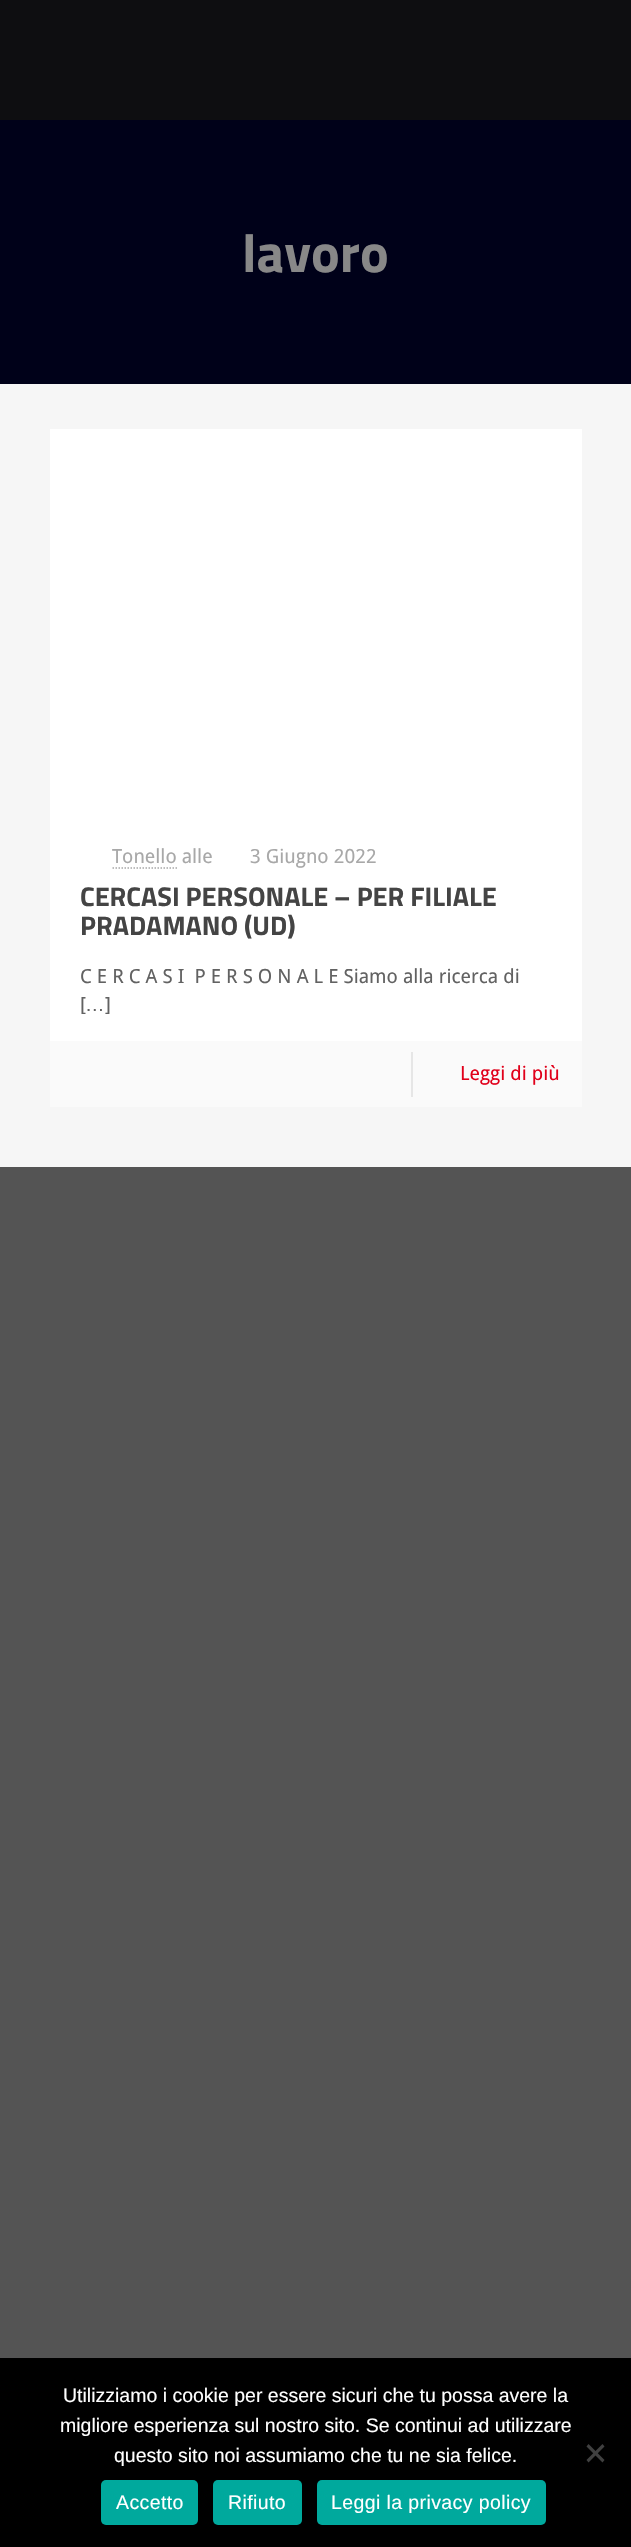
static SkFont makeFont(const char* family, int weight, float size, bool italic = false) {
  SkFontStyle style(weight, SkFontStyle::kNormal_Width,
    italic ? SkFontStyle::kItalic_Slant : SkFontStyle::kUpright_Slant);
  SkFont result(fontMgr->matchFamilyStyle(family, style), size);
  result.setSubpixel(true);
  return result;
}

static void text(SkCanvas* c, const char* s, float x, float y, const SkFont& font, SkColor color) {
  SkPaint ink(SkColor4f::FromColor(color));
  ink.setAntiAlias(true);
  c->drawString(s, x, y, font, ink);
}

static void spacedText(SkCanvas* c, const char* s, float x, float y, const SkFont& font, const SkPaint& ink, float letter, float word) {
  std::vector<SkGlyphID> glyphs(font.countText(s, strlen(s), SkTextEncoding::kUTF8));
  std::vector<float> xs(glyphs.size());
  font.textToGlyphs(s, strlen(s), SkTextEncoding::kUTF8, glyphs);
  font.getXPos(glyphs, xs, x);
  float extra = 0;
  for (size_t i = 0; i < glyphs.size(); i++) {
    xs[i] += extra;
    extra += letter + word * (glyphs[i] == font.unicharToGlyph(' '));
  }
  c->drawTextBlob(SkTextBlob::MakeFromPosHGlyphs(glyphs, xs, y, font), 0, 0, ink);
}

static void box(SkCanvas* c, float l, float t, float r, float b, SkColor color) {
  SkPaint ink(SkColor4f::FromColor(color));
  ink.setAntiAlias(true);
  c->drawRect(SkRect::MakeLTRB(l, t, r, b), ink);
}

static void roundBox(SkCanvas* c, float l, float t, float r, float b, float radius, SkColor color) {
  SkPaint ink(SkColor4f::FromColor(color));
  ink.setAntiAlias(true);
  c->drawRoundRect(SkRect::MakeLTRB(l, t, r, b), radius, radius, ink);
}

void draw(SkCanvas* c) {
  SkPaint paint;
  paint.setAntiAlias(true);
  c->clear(0xfff6f6f6);
  box(c, 0, 120, 631, 384, 0xff000119);
  box(c, 0, 0, 631, 120, 0xff0e0e11);
  SkFont face1 = makeFont("Titillium Web", 700, 54);
  text(c, "lavoro", 242, 272, face1, 0xff888888);
  box(c, 50, 429, 582, 1041, 0xffffffff);
  SkFont face2 = makeFont("Droid Sans", 400, 19.5f);
  text(c, "Tonello alle", 112, 863, face2, 0xffa8a8a8);
  paint.setStyle(SkPaint::kStroke_Style);
  paint.setStrokeWidth(1.5f);
  paint.setColor(0xffa8a8a8);
  paint.setPathEffect(SkDashPathEffect::Make({{1.5f, 1.5f}}, 0));
  c->drawPath(SkPathBuilder().moveTo(112.5f, 868).lineTo(177, 868).detach(), paint);
  paint.setPathEffect(nullptr);
  text(c, "3 Giugno 2022", 250, 863, face2, 0xffa8a8a8);
  SkFont face3 = makeFont("Titillium Web", 700, 27);
  text(c, "CERCASI PERSONALE – PER FILIALE", 80, 906, face3, 0xff444444);
  text(c, "PRADAMANO (UD)", 80, 935, face3, 0xff444444);
  text(c, "C E R C A S I  P E R S O N A L E Siamo alla ricerca di", 80, 983, face2, 0xff626262);
  text(c, "[", 80, 1011, face2, 0xff626262);
  SkFont face4 = makeFont("Liberation Sans", 400, 19.5f);
  text(c, "…", 85, 1011, face4, 0xff626262);
  text(c, "]", 105, 1011, face2, 0xff626262);
  box(c, 50, 1041, 582, 1107, 0xfffafafa);
  box(c, 411, 1052, 413, 1097, 0xffe6e6e6);
  text(c, "Leggi di più", 460, 1080, face2, 0xffe1001a);
  box(c, 0, 1167, 631, 2358, 0xff545454);
  box(c, 0, 2358, 631, 2547, 0xff000000);
  text(c, "Utilizziamo i cookie per essere sicuri che tu possa avere la", 63, 2402, face4, 0xffffffff);
  text(c, "migliore esperienza sul nostro sito. Se continui ad utilizzare", 60, 2432, face4, 0xffffffff);
  text(c, "questo sito noi assumiamo che tu ne sia felice.", 114, 2462, face4, 0xffffffff);
  paint.setStyle(SkPaint::kFill_Style);
  paint.setColor(0xff404040);
  c->drawPath(SkPathBuilder().moveTo(602.5f, 2444).lineTo(604.5f, 2446.5f).lineTo(588.5f, 2462.5f).lineTo(586.5f, 2460).close().detach(), paint);
  c->drawPath(SkPathBuilder().moveTo(586.5f, 2446.5f).lineTo(588.5f, 2444).lineTo(604.5f, 2460).lineTo(602.5f, 2462.5f).close().detach(), paint);
  roundBox(c, 101, 2480, 198, 2525, 5, 0xff00a99d);
  paint.setColor(0xffffffff);
  spacedText(c, "Accetto", 116, 2509, face4, paint, 0.4f, 0);
  roundBox(c, 213, 2480, 302, 2525, 5, 0xff00a99d);
  spacedText(c, "Rifiuto", 228, 2509, face4, paint, 0.4f, 0);
  roundBox(c, 317, 2480, 546, 2525, 5, 0xff00a99d);
  spacedText(c, "Leggi la privacy policy", 331, 2509, face4, paint, 0.4f, 0);
}
